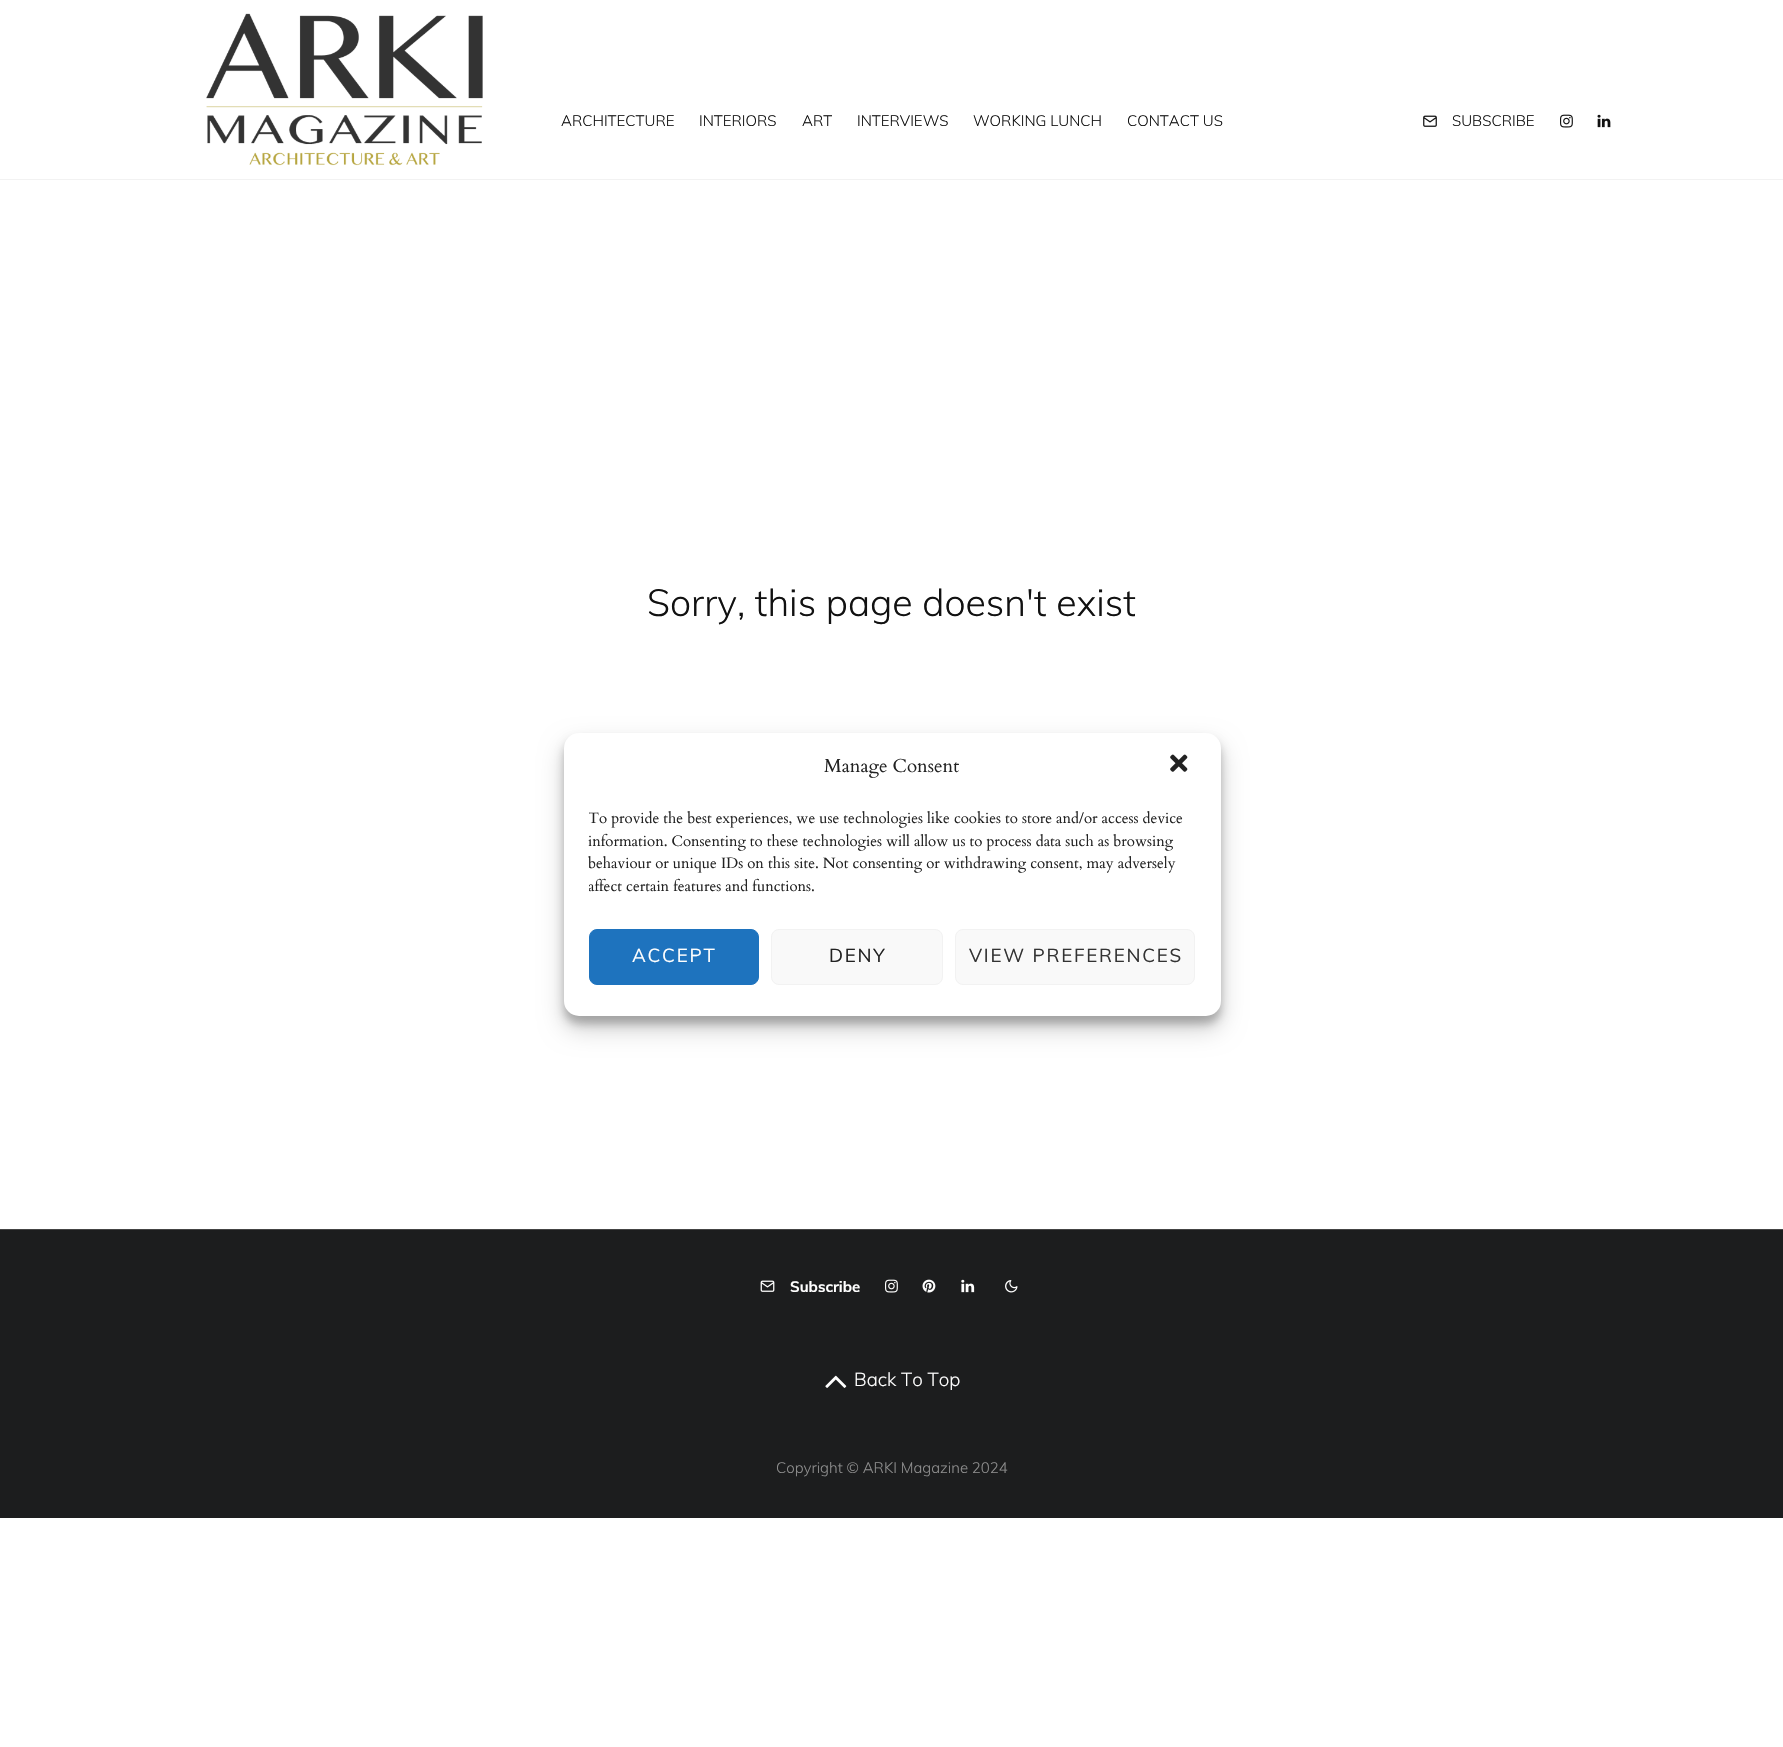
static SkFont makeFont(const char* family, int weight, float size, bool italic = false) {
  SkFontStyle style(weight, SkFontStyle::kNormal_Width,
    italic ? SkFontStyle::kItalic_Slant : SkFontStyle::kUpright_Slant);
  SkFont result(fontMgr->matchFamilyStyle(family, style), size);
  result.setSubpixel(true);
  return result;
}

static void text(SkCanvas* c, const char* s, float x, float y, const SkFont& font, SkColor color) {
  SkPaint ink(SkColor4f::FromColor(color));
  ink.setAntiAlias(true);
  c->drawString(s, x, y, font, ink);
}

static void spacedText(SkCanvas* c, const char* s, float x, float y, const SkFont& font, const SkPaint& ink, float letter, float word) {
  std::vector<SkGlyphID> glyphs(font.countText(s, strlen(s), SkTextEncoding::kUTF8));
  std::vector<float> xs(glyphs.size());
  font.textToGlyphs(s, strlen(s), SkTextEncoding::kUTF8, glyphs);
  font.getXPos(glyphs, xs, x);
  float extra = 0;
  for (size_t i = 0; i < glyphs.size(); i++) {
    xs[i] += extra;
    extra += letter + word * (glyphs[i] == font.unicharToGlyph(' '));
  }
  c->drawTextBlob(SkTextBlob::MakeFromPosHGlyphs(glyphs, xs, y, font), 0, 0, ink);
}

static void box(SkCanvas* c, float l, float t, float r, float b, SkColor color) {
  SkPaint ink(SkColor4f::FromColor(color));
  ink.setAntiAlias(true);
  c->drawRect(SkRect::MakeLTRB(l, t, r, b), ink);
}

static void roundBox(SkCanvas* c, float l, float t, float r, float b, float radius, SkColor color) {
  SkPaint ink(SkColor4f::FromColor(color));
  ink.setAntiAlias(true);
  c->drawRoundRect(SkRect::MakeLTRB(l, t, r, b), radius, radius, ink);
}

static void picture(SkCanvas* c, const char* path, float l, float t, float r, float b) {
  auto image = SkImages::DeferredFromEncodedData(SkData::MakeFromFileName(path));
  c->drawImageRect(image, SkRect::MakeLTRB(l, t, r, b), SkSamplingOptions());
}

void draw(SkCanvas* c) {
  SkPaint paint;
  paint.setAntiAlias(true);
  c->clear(0xffffffff);
  box(c, 0, 179, 1783, 180, 0xfff2f2f2);
  picture(c, "img_01.png", 206, 13, 483, 166);
  SkFont face1 = makeFont("Muli", 300, 15);
  text(c, "ARCHITECTURE", 561, 126, face1, 0xff111111);
  text(c, "INTERIORS", 699, 126, face1, 0xff111111);
  text(c, "ART", 802, 126, face1, 0xff111111);
  text(c, "INTERVIEWS", 857, 126, face1, 0xff111111);
  text(c, "WORKING LUNCH", 973, 126, face1, 0xff111111);
  text(c, "CONTACT US", 1127, 126, face1, 0xff111111);
  picture(c, "img_02.png", 1423, 115, 1437, 127);
  text(c, "SUBSCRIBE", 1452, 126, face1, 0xff111111);
  picture(c, "img_03.png", 1560, 114, 1573, 128);
  picture(c, "img_04.png", 1597, 114, 1611, 128);
  SkFont face2 = makeFont("Muli", 300, 37.5f);
  text(c, "Sorry, this page doesn't exist", 647, 616, face2, 0xff111111);
  box(c, 0, 1229, 1783, 1230, 0xff444444);
  box(c, 0, 1230, 1783, 1518, 0xff1c1d1e);
  picture(c, "img_05.png", 760, 1280, 775, 1292);
  SkFont face3 = makeFont("Muli", 700, 15);
  text(c, "Subscribe", 790, 1292, face3, 0xffffffff);
  picture(c, "img_06.png", 885, 1279, 898, 1293);
  picture(c, "img_07.png", 922, 1279, 936, 1293);
  picture(c, "img_08.png", 961, 1279, 975, 1293);
  picture(c, "img_09.png", 1005, 1280, 1018, 1293);
  picture(c, "img_10.png", 825, 1375, 847, 1388);
  SkFont face4 = makeFont("Muli", 300, 18.75f);
  text(c, "Back To Top", 854, 1386, face4, 0xffffffff);
  text(c, "Copyright © ARKI Magazine 2024", 776, 1473, face1, 0xff8e8e8e);
  paint.setColor(0x3b000000);
  paint.setMaskFilter(SkMaskFilter::MakeBlur(kNormal_SkBlurStyle, 4));
  c->drawRoundRect(SkRect::MakeLTRB(564, 740, 1221, 1024), 15, 15, paint);
  paint.setMaskFilter(nullptr);
  paint.setColor(0x30000000);
  paint.setMaskFilter(SkMaskFilter::MakeBlur(kNormal_SkBlurStyle, 12.5f));
  c->drawRoundRect(SkRect::MakeLTRB(564, 745, 1221, 1029), 15, 15, paint);
  paint.setMaskFilter(nullptr);
  roundBox(c, 564, 733, 1221, 1016, 15, 0xffffffff);
  SkFont face5 = makeFont("Cardo", 400, 18.75f);
  text(c, "Manage Consent", 824, 772, face5, 0xff222222);
  picture(c, "img_11.png", 1170, 754, 1188, 772);
  c->save();
  c->clipRect(SkRect::MakeLTRB(589, 808, 1196, 904));
  SkFont face6 = makeFont("Cardo", 400, 15);
  text(c, "To provide the best experiences, we use technologies like cookies to store and/or access device", 588, 823, face6, 0xff222222);
  c->restore();
  text(c, "information. Consenting to these technologies will allow us to process data such as browsing", 588, 846, face6, 0xff222222);
  text(c, "behaviour or unique IDs on this site. Not consenting or withdrawing consent, may adversely", 588, 868, face6, 0xff222222);
  c->save();
  c->clipRect(SkRect::MakeLTRB(589, 808, 1196, 904));
  text(c, "affect certain features and functions.", 588, 891, face6, 0xff222222);
  c->restore();
  paint.setColor(0xff1e73be);
  c->drawRoundRect(SkRect::MakeLTRB(589.5f, 929.5f, 758.5f, 984.5f), 7.5f, 7.5f, paint);
  paint.setStyle(SkPaint::kStroke_Style);
  paint.setStrokeWidth(1);
  c->drawRoundRect(SkRect::MakeLTRB(589.5f, 929.5f, 758.5f, 984.5f), 7.5f, 7.5f, paint);
  SkFont face7 = makeFont("Muli", 400, 18.75f);
  paint.setStyle(SkPaint::kFill_Style);
  paint.setColor(0xffffffff);
  spacedText(c, "ACCEPT", 632, 962, face7, paint, 1.75f, 0);
  paint.setColor(0xfff9f9f9);
  c->drawRoundRect(SkRect::MakeLTRB(771.5f, 929.5f, 942.5f, 984.5f), 7.5f, 7.5f, paint);
  paint.setStyle(SkPaint::kStroke_Style);
  paint.setColor(0xfff2f2f2);
  c->drawRoundRect(SkRect::MakeLTRB(771.5f, 929.5f, 942.5f, 984.5f), 7.5f, 7.5f, paint);
  paint.setStyle(SkPaint::kFill_Style);
  paint.setColor(0xff222222);
  spacedText(c, "DENY", 829, 962, face7, paint, 1.75f, 0);
  paint.setColor(0xfff9f9f9);
  c->drawRoundRect(SkRect::MakeLTRB(955.5f, 929.5f, 1194.5f, 984.5f), 7.5f, 7.5f, paint);
  paint.setStyle(SkPaint::kStroke_Style);
  paint.setColor(0xfff2f2f2);
  c->drawRoundRect(SkRect::MakeLTRB(955.5f, 929.5f, 1194.5f, 984.5f), 7.5f, 7.5f, paint);
  paint.setStyle(SkPaint::kFill_Style);
  paint.setColor(0xff333333);
  spacedText(c, "VIEW PREFERENCES", 969, 962, face7, paint, 1.75f, 0);
}
